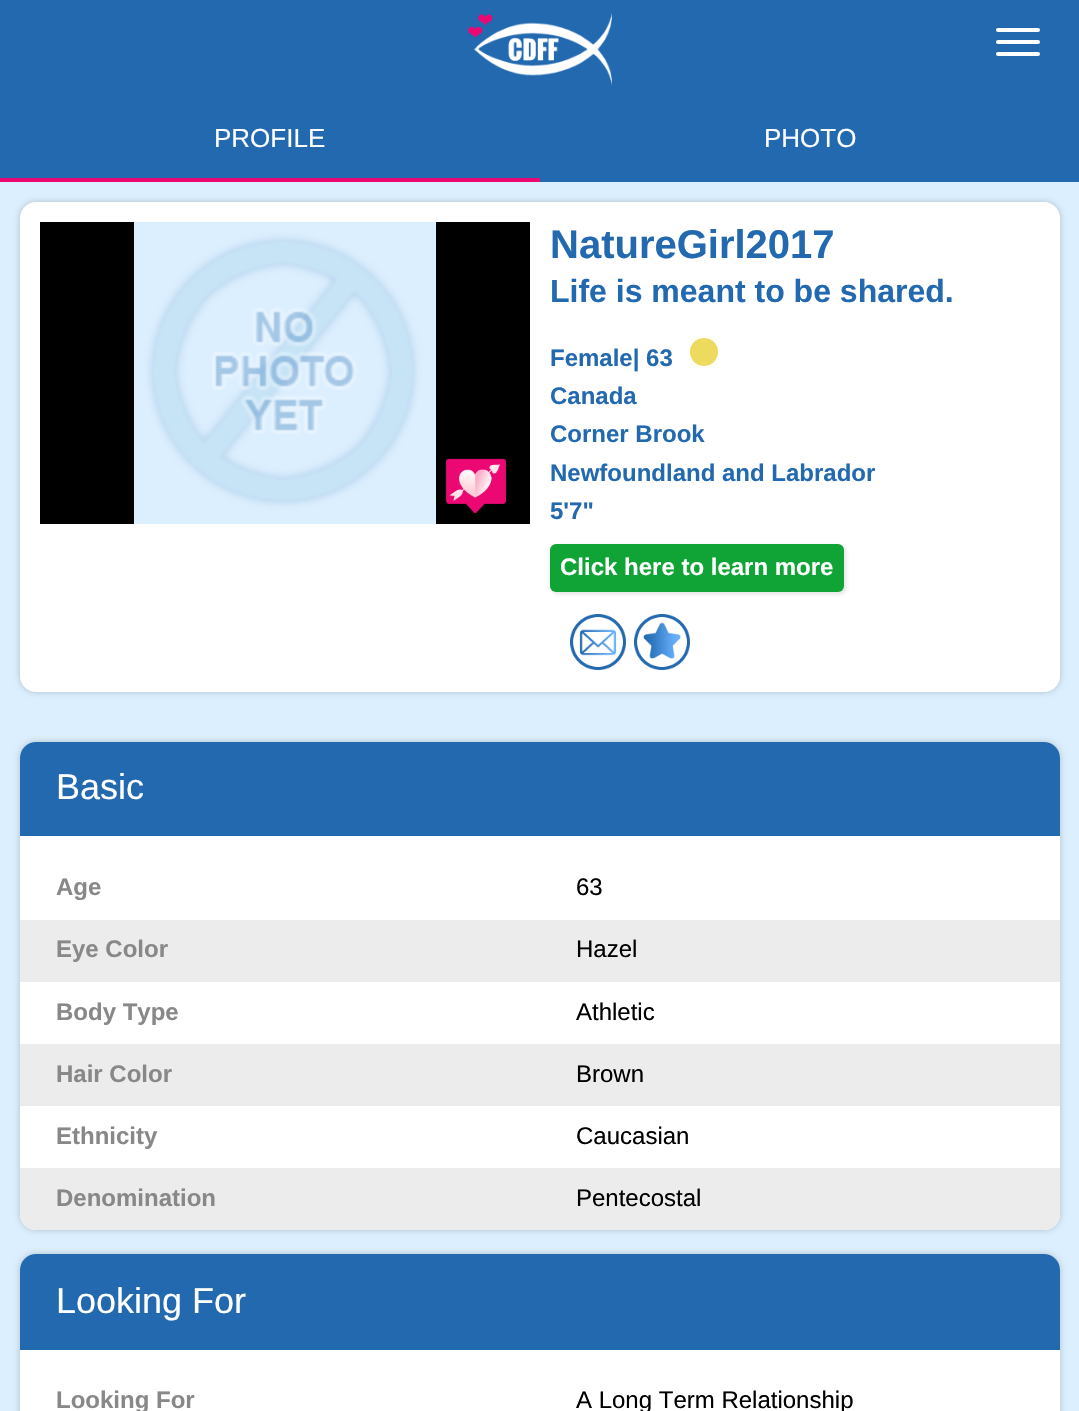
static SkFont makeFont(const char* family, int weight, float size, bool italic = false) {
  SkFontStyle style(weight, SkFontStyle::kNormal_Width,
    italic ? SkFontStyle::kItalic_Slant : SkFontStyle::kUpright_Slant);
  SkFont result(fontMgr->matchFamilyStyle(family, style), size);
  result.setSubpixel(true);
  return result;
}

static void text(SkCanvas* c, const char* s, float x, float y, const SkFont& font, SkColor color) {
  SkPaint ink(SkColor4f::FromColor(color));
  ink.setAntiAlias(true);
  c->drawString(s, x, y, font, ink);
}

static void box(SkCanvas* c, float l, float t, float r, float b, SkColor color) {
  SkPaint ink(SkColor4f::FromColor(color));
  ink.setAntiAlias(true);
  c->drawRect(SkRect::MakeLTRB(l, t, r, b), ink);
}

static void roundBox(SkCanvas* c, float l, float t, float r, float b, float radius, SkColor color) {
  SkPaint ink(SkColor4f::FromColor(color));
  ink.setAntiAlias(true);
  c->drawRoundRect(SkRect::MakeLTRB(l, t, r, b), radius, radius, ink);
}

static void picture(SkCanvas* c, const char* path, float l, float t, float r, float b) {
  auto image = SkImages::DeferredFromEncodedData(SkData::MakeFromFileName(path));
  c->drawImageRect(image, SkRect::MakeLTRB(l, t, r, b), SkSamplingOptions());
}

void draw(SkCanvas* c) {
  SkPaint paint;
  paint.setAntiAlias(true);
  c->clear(0xffdceffe);
  box(c, 0, 0, 1079, 96, 0xff2269b0);
  picture(c, "img_01.png", 468, 12, 612, 86);
  roundBox(c, 996, 28, 1040, 32, 2, 0xffffffff);
  roundBox(c, 996, 40, 1040, 44, 2, 0xffffffff);
  roundBox(c, 996, 52, 1040, 56, 2, 0xffffffff);
  box(c, 0, 96, 540, 178, 0xff2269b0);
  SkFont face1 = makeFont("Liberation Sans", 400, 26);
  text(c, "PROFILE", 214, 147, face1, 0xffffffff);
  box(c, 0, 178, 540, 182, 0xffeb0873);
  box(c, 540, 96, 1079, 182, 0xff2269b0);
  text(c, "PHOTO", 764, 147, face1, 0xffffffff);
  paint.setColor(0x33000000);
  paint.setMaskFilter(SkMaskFilter::MakeBlur(kNormal_SkBlurStyle, 3));
  c->drawRoundRect(SkRect::MakeLTRB(20, 202, 1060, 692), 16, 16, paint);
  paint.setMaskFilter(nullptr);
  roundBox(c, 20, 202, 1060, 692, 16, 0xffffffff);
  box(c, 40, 222, 530, 524, 0xff000000);
  picture(c, "img_02.png", 134, 222, 436, 524);
  picture(c, "img_03.png", 446, 458, 506, 514);
  SkFont face2 = makeFont("Liberation Sans", 700, 40);
  text(c, "NatureGirl2017", 550, 258, face2, 0xff2269b0);
  SkFont face3 = makeFont("Liberation Sans", 700, 32);
  text(c, "Life is meant to be shared.", 550, 302, face3, 0xff2269b0);
  SkFont face4 = makeFont("Liberation Sans", 700, 24);
  text(c, "Female| 63", 550, 366, face4, 0xff2269b0);
  paint.setColor(0xffecdb5e);
  c->drawCircle(704, 352, 14, paint);
  text(c, "Canada", 550, 404, face4, 0xff2269b0);
  text(c, "Corner Brook", 550, 442, face4, 0xff2269b0);
  text(c, "Newfoundland and Labrador", 550, 481, face4, 0xff2269b0);
  text(c, "5'7\"", 550, 519, face4, 0xff2269b0);
  paint.setColor(0x24323232);
  paint.setMaskFilter(SkMaskFilter::MakeBlur(kNormal_SkBlurStyle, 2));
  c->drawRoundRect(SkRect::MakeLTRB(552, 546, 846, 594), 6, 6, paint);
  paint.setMaskFilter(nullptr);
  roundBox(c, 550, 544, 844, 592, 6, 0xff0fa435);
  text(c, "Click here to learn more", 560, 575, face4, 0xffffffff);
  picture(c, "img_04.png", 570, 614, 626, 670);
  picture(c, "img_05.png", 634, 614, 690, 670);
  paint.setColor(0x33000000);
  paint.setMaskFilter(SkMaskFilter::MakeBlur(kNormal_SkBlurStyle, 3));
  c->drawRoundRect(SkRect::MakeLTRB(20, 742, 1060, 1230), 16, 16, paint);
  paint.setMaskFilter(nullptr);
  roundBox(c, 20, 742, 1060, 1230, 16, 0xffffffff);
  paint.setColor(0xff2269b0);
  c->drawPath(SkPathBuilder().moveTo(36, 742).lineTo(1044, 742).cubicTo(1053, 742, 1060, 749, 1060, 758).lineTo(1060, 836).lineTo(20, 836).lineTo(20, 758).cubicTo(20, 749, 27, 742, 36, 742).close().detach(), paint);
  SkFont face5 = makeFont("Liberation Sans", 400, 36);
  text(c, "Basic", 56, 799, face5, 0xffffffff);
  paint.setColor(0xffffffff);
  c->drawPath(SkPathBuilder().moveTo(28, 856).lineTo(1052, 856).cubicTo(1056.5f, 856, 1060, 859.5f, 1060, 864).lineTo(1060, 1214).cubicTo(1060, 1223, 1053, 1230, 1044, 1230).lineTo(36, 1230).cubicTo(27, 1230, 20, 1223, 20, 1214).lineTo(20, 864).cubicTo(20, 859.5f, 23.5f, 856, 28, 856).close().detach(), paint);
  text(c, "Age", 56, 895, face4, 0xff888888);
  SkFont face6 = makeFont("Liberation Sans", 400, 24);
  text(c, "63", 576, 895, face6, 0xff000000);
  box(c, 20, 920, 1060, 982, 0xffececec);
  text(c, "Eye Color", 56, 957, face4, 0xff888888);
  text(c, "Hazel", 576, 957, face6, 0xff000000);
  text(c, "Body Type", 56, 1020, face4, 0xff888888);
  text(c, "Athletic", 576, 1020, face6, 0xff000000);
  box(c, 20, 1044, 1060, 1106, 0xffececec);
  text(c, "Hair Color", 56, 1082, face4, 0xff888888);
  text(c, "Brown", 576, 1082, face6, 0xff000000);
  text(c, "Ethnicity", 56, 1144, face4, 0xff888888);
  text(c, "Caucasian", 576, 1144, face6, 0xff000000);
  paint.setColor(0xffececec);
  c->drawPath(SkPathBuilder().moveTo(20, 1168).lineTo(1060, 1168).lineTo(1060, 1214).cubicTo(1060, 1223, 1053, 1230, 1044, 1230).lineTo(36, 1230).cubicTo(27, 1230, 20, 1223, 20, 1214).close().detach(), paint);
  text(c, "Denomination", 56, 1206, face4, 0xff888888);
  text(c, "Pentecostal", 576, 1206, face6, 0xff000000);
  paint.setColor(0x33000000);
  paint.setMaskFilter(SkMaskFilter::MakeBlur(kNormal_SkBlurStyle, 3));
  c->drawRoundRect(SkRect::MakeLTRB(20, 1254, 1060, 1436), 16, 16, paint);
  paint.setMaskFilter(nullptr);
  roundBox(c, 20, 1254, 1060, 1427, 16, 0xffffffff);
  paint.setColor(0xff2269b0);
  c->drawPath(SkPathBuilder().moveTo(36, 1254).lineTo(1044, 1254).cubicTo(1053, 1254, 1060, 1261, 1060, 1270).lineTo(1060, 1350).lineTo(20, 1350).lineTo(20, 1270).cubicTo(20, 1261, 27, 1254, 36, 1254).close().detach(), paint);
  text(c, "Looking For", 56, 1313, face5, 0xffffffff);
  text(c, "Looking For", 56, 1408, face4, 0xff888888);
  text(c, "A Long Term Relationship", 576, 1408, face6, 0xff000000);
}
